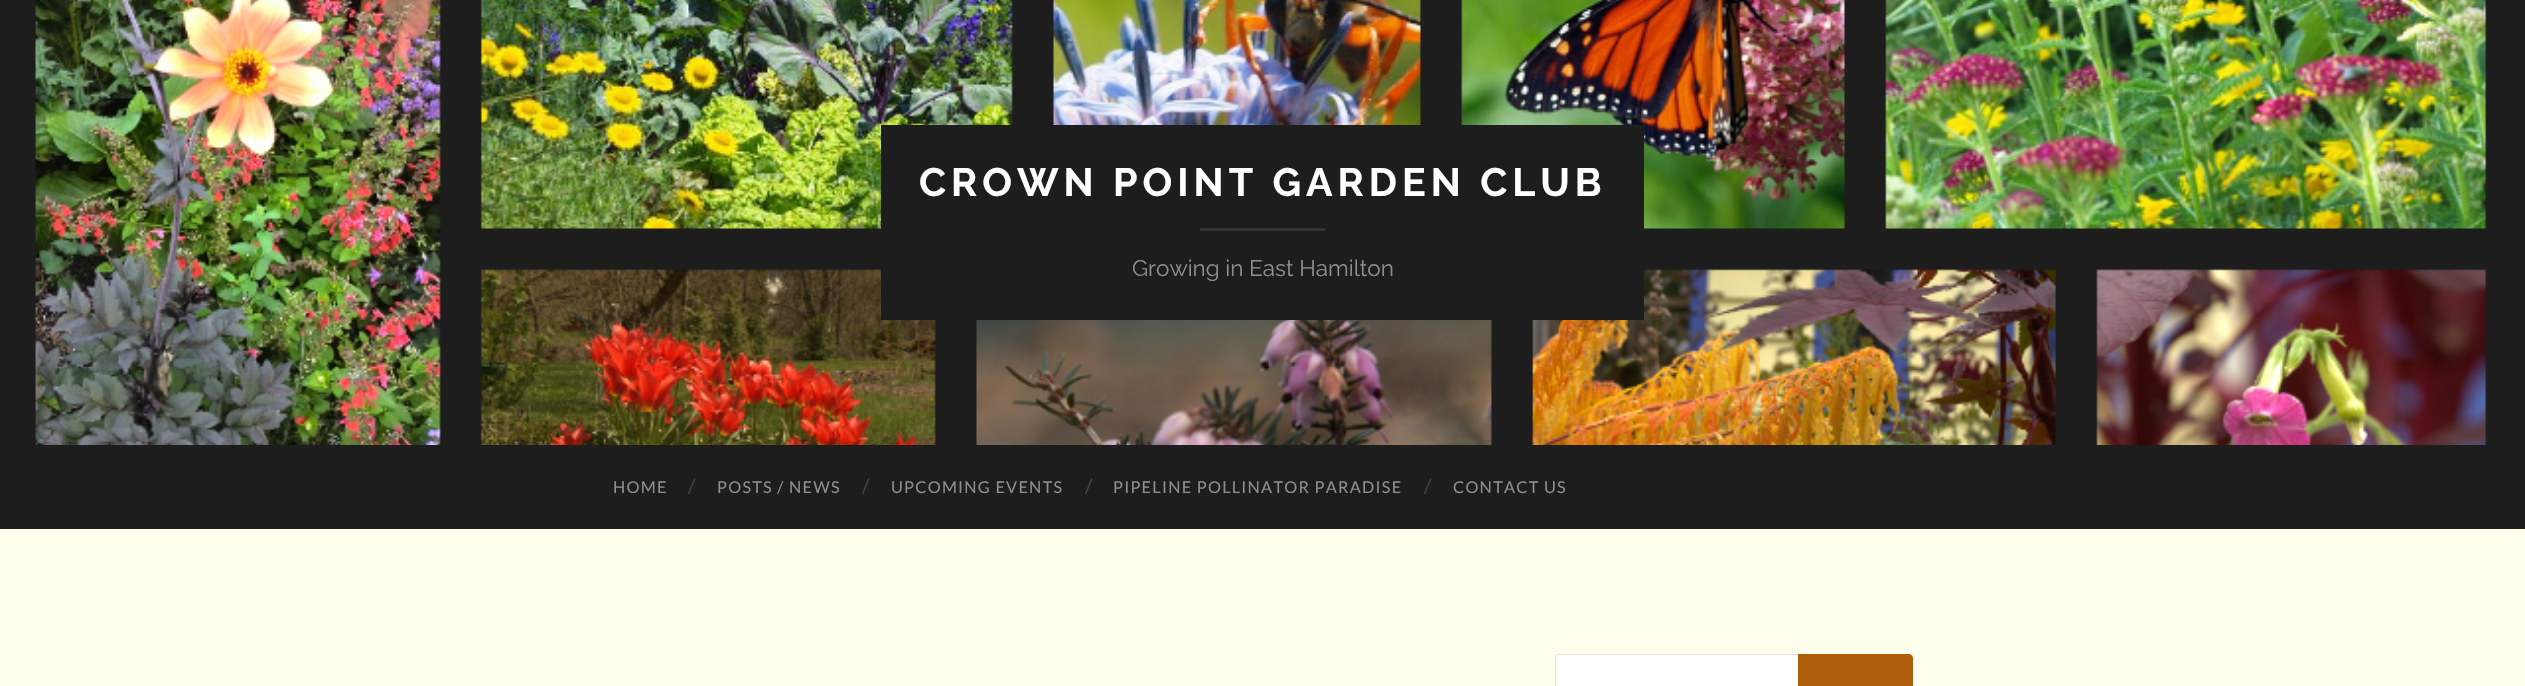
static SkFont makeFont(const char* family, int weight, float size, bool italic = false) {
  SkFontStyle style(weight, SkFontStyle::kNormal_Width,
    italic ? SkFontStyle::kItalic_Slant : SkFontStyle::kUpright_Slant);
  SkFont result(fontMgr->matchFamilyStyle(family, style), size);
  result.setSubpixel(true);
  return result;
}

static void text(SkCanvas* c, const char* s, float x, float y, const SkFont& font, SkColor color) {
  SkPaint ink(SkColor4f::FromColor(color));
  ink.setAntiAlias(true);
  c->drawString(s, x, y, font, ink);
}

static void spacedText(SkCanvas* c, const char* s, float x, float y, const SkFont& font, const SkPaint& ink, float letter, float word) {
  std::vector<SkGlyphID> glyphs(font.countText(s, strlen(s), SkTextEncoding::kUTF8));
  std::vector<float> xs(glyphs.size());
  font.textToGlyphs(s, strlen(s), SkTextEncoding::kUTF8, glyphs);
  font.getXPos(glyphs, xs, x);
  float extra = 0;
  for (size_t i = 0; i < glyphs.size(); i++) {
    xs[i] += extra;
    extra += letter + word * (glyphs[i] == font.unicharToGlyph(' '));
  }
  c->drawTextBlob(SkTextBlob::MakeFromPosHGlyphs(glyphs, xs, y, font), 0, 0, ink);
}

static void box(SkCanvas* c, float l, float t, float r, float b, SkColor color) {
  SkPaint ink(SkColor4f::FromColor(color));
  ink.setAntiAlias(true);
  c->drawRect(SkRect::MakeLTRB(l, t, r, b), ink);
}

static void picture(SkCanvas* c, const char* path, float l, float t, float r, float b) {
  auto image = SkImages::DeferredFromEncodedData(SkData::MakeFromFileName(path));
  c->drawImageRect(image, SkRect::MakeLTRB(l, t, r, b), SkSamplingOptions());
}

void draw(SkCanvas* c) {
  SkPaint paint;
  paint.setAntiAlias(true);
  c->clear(0xffffffee);
  picture(c, "img_01.png", 0, 0, 2525, 445);
  box(c, 881, 125, 1644, 320, 0xff1d1d1d);
  SkFont face1 = makeFont("Raleway", 100, 39.4f);
  paint.setColor(0xffffffff);
  spacedText(c, "CROWN POINT GARDEN CLUB", 919, 196, face1, paint, 5, 0);
  box(c, 1200, 228, 1325, 231, 0xff343434);
  SkFont face2 = makeFont("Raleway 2", 100, 22.5f);
  text(c, "Growing in East Hamilton", 1132, 276, face2, 0xff8e8e8e);
  box(c, 0, 445, 2525, 529, 0xff1d1d1d);
  SkFont face3 = makeFont("Lato", 400, 16.25f);
  paint.setColor(0xff8e8e8e);
  spacedText(c, "HOME", 613, 493, face3, paint, 1.25f, 0);
  SkFont face4 = makeFont("Lato", 400, 20);
  text(c, "/", 688, 493, face4, 0xff444444);
  spacedText(c, "POSTS / NEWS", 717, 493, face3, paint, 1.25f, 0);
  text(c, "/", 862, 493, face4, 0xff444444);
  spacedText(c, "UPCOMING EVENTS", 891, 493, face3, paint, 1.25f, 0);
  text(c, "/", 1085, 493, face4, 0xff444444);
  spacedText(c, "PIPELINE POLLINATOR PARADISE", 1113, 493, face3, paint, 1.25f, 0);
  text(c, "/", 1424, 493, face4, 0xff444444);
  spacedText(c, "CONTACT US", 1453, 493, face3, paint, 1.25f, 0);
  paint.setColor(0xffffffff);
  c->drawPath(SkPathBuilder().moveTo(1558.5f, 655).lineTo(1798, 655).lineTo(1798, 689).lineTo(1558.5f, 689).cubicTo(1557, 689, 1556, 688, 1556, 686.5f).lineTo(1556, 657.5f).cubicTo(1556, 656, 1557, 655, 1558.5f, 655).close().detach(), paint);
  paint.setColor(0xffe1e1e3);
  c->drawPath(SkPathBuilder(SkPathFillType::kEvenOdd).moveTo(1559, 654).lineTo(1798, 654).lineTo(1798, 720).lineTo(1559, 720).cubicTo(1557, 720, 1555, 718, 1555, 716).lineTo(1555, 658).cubicTo(1555, 655, 1557, 654, 1559, 654).close().moveTo(1559, 655).lineTo(1798, 655).lineTo(1798, 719).lineTo(1559, 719).cubicTo(1557, 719, 1556, 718, 1556, 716).lineTo(1556, 658).cubicTo(1556, 656, 1557, 655, 1559, 655).close().detach(), paint);
  paint.setColor(0xffaf5e0e);
  c->drawPath(SkPathBuilder().moveTo(1798, 654).lineTo(1909, 654).cubicTo(1911, 654, 1913, 656, 1913, 658).lineTo(1913, 686).cubicTo(1913, 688, 1911, 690, 1909, 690).lineTo(1798, 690).close().detach(), paint);
}
